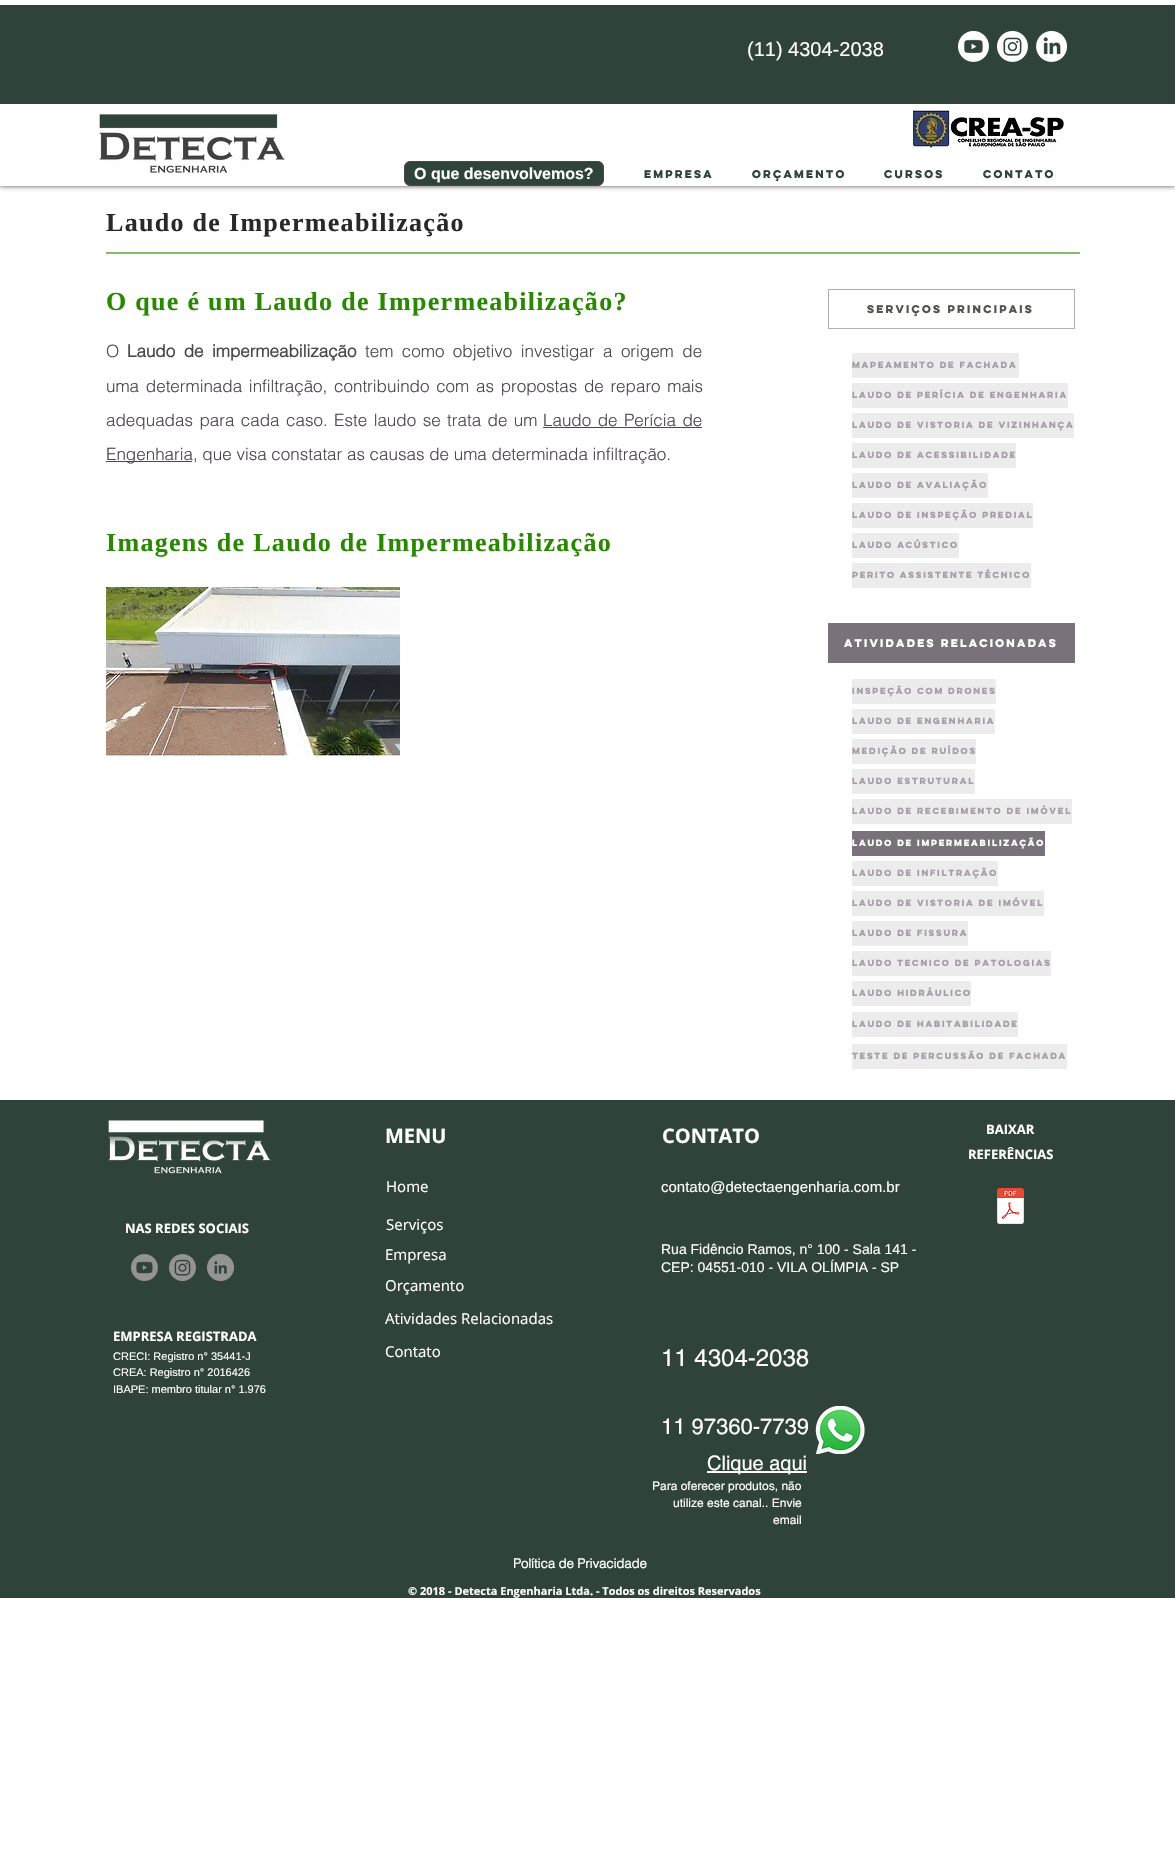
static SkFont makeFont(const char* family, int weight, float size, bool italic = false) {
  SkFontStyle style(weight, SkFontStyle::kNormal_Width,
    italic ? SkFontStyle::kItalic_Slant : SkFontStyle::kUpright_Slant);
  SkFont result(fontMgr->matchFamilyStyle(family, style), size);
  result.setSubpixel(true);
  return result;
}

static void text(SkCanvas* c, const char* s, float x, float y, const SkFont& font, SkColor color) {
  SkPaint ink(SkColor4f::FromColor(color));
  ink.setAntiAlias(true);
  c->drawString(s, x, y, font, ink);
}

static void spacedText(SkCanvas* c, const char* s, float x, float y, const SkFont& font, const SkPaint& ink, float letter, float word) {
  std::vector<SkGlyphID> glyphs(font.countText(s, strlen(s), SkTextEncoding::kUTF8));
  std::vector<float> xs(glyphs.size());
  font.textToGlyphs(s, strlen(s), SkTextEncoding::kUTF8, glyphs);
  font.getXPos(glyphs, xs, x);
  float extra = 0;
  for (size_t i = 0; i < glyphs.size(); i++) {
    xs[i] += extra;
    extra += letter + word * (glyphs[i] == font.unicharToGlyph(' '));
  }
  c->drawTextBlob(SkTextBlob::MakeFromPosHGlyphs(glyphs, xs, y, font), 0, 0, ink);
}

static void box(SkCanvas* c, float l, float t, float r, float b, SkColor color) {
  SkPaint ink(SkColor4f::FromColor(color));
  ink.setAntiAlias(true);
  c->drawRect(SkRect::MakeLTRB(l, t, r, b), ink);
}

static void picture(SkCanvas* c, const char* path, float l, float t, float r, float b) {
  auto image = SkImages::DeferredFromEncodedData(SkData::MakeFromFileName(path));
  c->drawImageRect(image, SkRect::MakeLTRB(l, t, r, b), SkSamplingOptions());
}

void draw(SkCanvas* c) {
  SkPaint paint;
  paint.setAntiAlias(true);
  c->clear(0xffffffff);
  paint.setColor(0xb3000000);
  paint.setMaskFilter(SkMaskFilter::MakeBlur(kNormal_SkBlurStyle, 2.5f));
  c->drawRect(SkRect::MakeLTRB(0, 0, 1175, 186), paint);
  paint.setMaskFilter(nullptr);
  box(c, 0, 0, 1175, 186, 0xffffffff);
  box(c, 0, 5, 1175, 104, 0xff2f433b);
  SkFont face1 = makeFont("Liberation Sans", 400, 20);
  text(c, "(11) 4304-2038", 747, 56, face1, 0xffffffff);
  picture(c, "img_01.png", 958, 31, 989, 62);
  picture(c, "img_02.png", 997, 31, 1028, 62);
  picture(c, "img_03.png", 1036, 31, 1067, 62);
  picture(c, "img_04.png", 99, 114, 285, 173);
  picture(c, "img_05.png", 912, 105, 1064, 150);
  paint.setColor(0xff2f433b);
  c->drawRoundRect(SkRect::MakeLTRB(404.5f, 161.5f, 603.5f, 185.5f), 5.5f, 5.5f, paint);
  paint.setStyle(SkPaint::kStroke_Style);
  paint.setStrokeWidth(1);
  paint.setColor(0xff4e464f);
  c->drawRoundRect(SkRect::MakeLTRB(404.5f, 161.5f, 603.5f, 185.5f), 5.5f, 5.5f, paint);
  SkFont face2 = makeFont("Liberation Sans", 700, 16);
  text(c, "O que desenvolvemos?", 414, 179, face2, 0xffffffff);
  SkFont face3 = makeFont("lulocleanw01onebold", 700, 10);
  text(c, "EMPRESA", 644, 178, face3, 0xff2f433b);
  text(c, "ORÇAMENTO", 752, 178, face3, 0xff2f433b);
  text(c, "CURSOS", 884, 178, face3, 0xff2f433b);
  text(c, "CONTATO", 983, 178, face3, 0xff2f433b);
  SkFont face4 = makeFont("Liberation Serif", 700, 26);
  paint.setStyle(SkPaint::kFill_Style);
  paint.setColor(0xff292929);
  spacedText(c, "Laudo de Impermeabilização", 106, 231, face4, paint, 1.3f, 0);
  box(c, 106, 252, 1080, 254, 0xff83b96c);
  paint.setColor(0xff298701);
  spacedText(c, "O que é um Laudo de Impermeabilização?", 106, 310, face4, paint, 1.3f, 0);
  paint.setStyle(SkPaint::kStroke_Style);
  paint.setColor(0xffb2adb2);
  c->drawRect(SkRect::MakeLTRB(828.5f, 289.5f, 1074.5f, 328.5f), paint);
  text(c, "Serviços principais", 867, 313, face3, 0xff59514d);
  box(c, 852, 353, 1019, 378, 0xffececec);
  SkFont face5 = makeFont("lulocleanw01onebold", 700, 8);
  text(c, "Mapeamento de fachada", 852, 368, face5, 0xffa69ea7);
  box(c, 852, 383, 1068, 408, 0xffececec);
  text(c, "Laudo de Perícia de engenharia", 852, 398, face5, 0xffa69ea7);
  box(c, 852, 413, 1074, 438, 0xffececec);
  text(c, "Laudo de vistoria de vizinhança", 852, 428, face5, 0xffa69ea7);
  box(c, 852, 443, 1016, 468, 0xffececec);
  text(c, "Laudo de Acessibilidade", 852, 458, face5, 0xffa69ea7);
  box(c, 852, 473, 988, 498, 0xffececec);
  text(c, "Laudo de Avaliação", 852, 488, face5, 0xffa69ea7);
  box(c, 852, 503, 1033, 528, 0xffececec);
  text(c, "Laudo de Inspeção Predial", 852, 518, face5, 0xffa69ea7);
  box(c, 852, 533, 959, 558, 0xffececec);
  text(c, "Laudo Acústico", 852, 548, face5, 0xffa69ea7);
  box(c, 852, 563, 1031, 588, 0xffececec);
  text(c, "Perito Assistente Técnico", 852, 578, face5, 0xffa69ea7);
  box(c, 828, 623, 1075, 663, 0xff7a727b);
  text(c, "atividades relacionadas", 844, 647, face3, 0xffffffff);
  box(c, 852, 679, 996, 704, 0xffececec);
  text(c, "Inspeção com drones", 852, 694, face5, 0xffa69ea7);
  box(c, 852, 709, 995, 734, 0xffececec);
  text(c, "Laudo de Engenharia", 852, 724, face5, 0xffa69ea7);
  box(c, 852, 739, 976, 764, 0xffececec);
  text(c, "Medição de Ruídos", 852, 754, face5, 0xffa69ea7);
  box(c, 852, 769, 975, 794, 0xffececec);
  text(c, "Laudo Estrutural", 852, 784, face5, 0xffa69ea7);
  box(c, 852, 799, 1072, 824, 0xffececec);
  text(c, "Laudo de recebimento de imóvel", 852, 814, face5, 0xffa69ea7);
  box(c, 852, 831, 1045, 856, 0xff7a727b);
  text(c, "laudo de impermeabilização", 852, 846, face5, 0xffffffff);
  box(c, 852, 861, 998, 886, 0xffececec);
  text(c, "laudo de infiltração", 852, 876, face5, 0xffa69ea7);
  box(c, 852, 891, 1044, 916, 0xffececec);
  text(c, "laudo de vistoria de imóvel", 852, 906, face5, 0xffa69ea7);
  box(c, 852, 921, 968, 946, 0xffececec);
  text(c, "laudo de fissura", 852, 936, face5, 0xffa69ea7);
  box(c, 852, 951, 1051, 976, 0xffececec);
  text(c, "laudo tecnico de patologias", 852, 966, face5, 0xffa69ea7);
  box(c, 852, 981, 971, 1006, 0xffececec);
  text(c, "laudo hidráulico", 852, 996, face5, 0xffa69ea7);
  box(c, 852, 1012, 1018, 1037, 0xffececec);
  text(c, "laudo de habitabilidade", 852, 1027, face5, 0xffa69ea7);
  SkFont face6 = makeFont("helvetica", 300, 17);
  text(c, "O", 106, 357, face6, 0xff4e464f);
  SkFont face7 = makeFont("helvetica", 700, 17);
  paint.setStyle(SkPaint::kFill_Style);
  paint.setColor(0xff4e464f);
  spacedText(c, "Laudo de impermeabilização", 127, 357, face7, paint, 0, 3.75f);
  spacedText(c, "tem como objetivo investigar a origem de", 365, 357, face6, paint, 0, 3.75f);
  spacedText(c, "uma determinada infiltração, contribuindo com as propostas de reparo mais", 106, 392, face6, paint, 0, 2);
  spacedText(c, "adequadas para cada caso. Este laudo se trata de um", 106, 426, face6, paint, 0, 1.75f);
  spacedText(c, "Laudo de Perícia de", 543, 426, face6, paint, 0, 1.75f);
  box(c, 543, 427, 702, 428, 0xff4e464f);
  box(c, 106, 461, 192, 462, 0xff4e464f);
  text(c, "Engenharia, que visa constatar as causas de uma determinada infiltração.", 106, 460, face6, 0xff4e464f);
  paint.setColor(0xff298701);
  spacedText(c, "Imagens de Laudo de Impermeabilização", 106, 551, face4, paint, 1.3f, 0);
  picture(c, "img_06.png", 106, 587, 400, 756);
  box(c, 852, 1044, 1067, 1069, 0xffececec);
  text(c, "Teste de PERCUSSÃO de FACHADA", 852, 1059, face5, 0xffa69ea7);
  box(c, 0, 1100, 1175, 1598, 0xff2f433b);
  picture(c, "img_07.png", 108, 1120, 271, 1174);
  SkFont face8 = makeFont("Open Sans", 700, 20);
  text(c, "MENU", 385, 1143, face8, 0xffffffff);
  text(c, "CONTATO", 662, 1143, face8, 0xffffffff);
  SkFont face9 = makeFont("Open Sans", 700, 13);
  text(c, "BAIXAR", 986, 1134, face9, 0xffffffff);
  text(c, "REFERÊNCIAS", 968, 1159, face9, 0xffffffff);
  SkFont face10 = makeFont("Open Sans", 400, 15);
  text(c, "Home", 386, 1192, face10, 0xffffffff);
  SkFont face11 = makeFont("Liberation Sans", 400, 15);
  text(c, "contato@detectaengenharia.com.br", 661, 1192, face11, 0xffffffff);
  picture(c, "img_08.png", 997, 1188, 1024, 1224);
  text(c, "NAS REDES SOCIAIS", 125, 1233, face9, 0xffffffff);
  text(c, "Serviços", 386, 1230, face10, 0xffffffff);
  picture(c, "img_09.png", 131, 1254, 158, 1281);
  picture(c, "img_10.png", 169, 1254, 196, 1281);
  picture(c, "img_11.png", 207, 1254, 234, 1281);
  text(c, "Empresa", 385, 1260, face10, 0xffffffff);
  SkFont face12 = makeFont("Liberation Sans", 400, 14);
  text(c, "Rua Fidêncio Ramos, n° 100 - Sala 141 -", 661, 1254, face12, 0xffffffff);
  text(c, "CEP: 04551-010 - VILA OLÍMPIA - SP", 661, 1272, face12, 0xffffffff);
  text(c, "Orçamento", 385, 1291, face10, 0xffffffff);
  text(c, "Atividades Relacionadas", 385, 1324, face10, 0xffffffff);
  text(c, "EMPRESA REGISTRADA", 113, 1341, face9, 0xffffffff);
  SkFont face13 = makeFont("Liberation Sans", 400, 11);
  text(c, "CRECI: Registro n° 35441-J", 113, 1360, face13, 0xffffffff);
  text(c, "CREA: Registro n° 2016426", 113, 1376, face13, 0xffffffff);
  text(c, "IBAPE: membro titular n° 1.976", 113, 1393, face13, 0xffffffff);
  text(c, "Contato", 385, 1357, face10, 0xffffffff);
  SkFont face14 = makeFont("helvetica", 400, 24);
  text(c, "11 4304-2038", 661, 1366, face14, 0xffffffff);
  SkFont face15 = makeFont("helvetica", 400, 22);
  text(c, "11 97360-7739", 661, 1434, face15, 0xffffffff);
  picture(c, "img_12.png", 815, 1406, 865, 1454);
  box(c, 707, 1471, 807, 1473, 0xffffffff);
  SkFont face16 = makeFont("helvetica", 400, 20);
  text(c, "Clique aqui", 707, 1470, face16, 0xffffffff);
  SkFont face17 = makeFont("helvetica", 400, 12);
  text(c, "Para oferecer produtos, não", 652, 1490, face17, 0xffffffff);
  text(c, "utilize este canal.. Envie", 673, 1507, face17, 0xffffffff);
  text(c, "email", 773, 1524, face17, 0xffffffff);
  SkFont face18 = makeFont("helvetica", 700, 13);
  text(c, "Política de Privacidade", 513, 1568, face18, 0xffffffff);
  SkFont face19 = makeFont("Open Sans", 700, 11);
  text(c, "© 2018 - Detecta Engenharia Ltda. - Todos os direitos Reservados", 408, 1595, face19, 0xffffffff);
}
